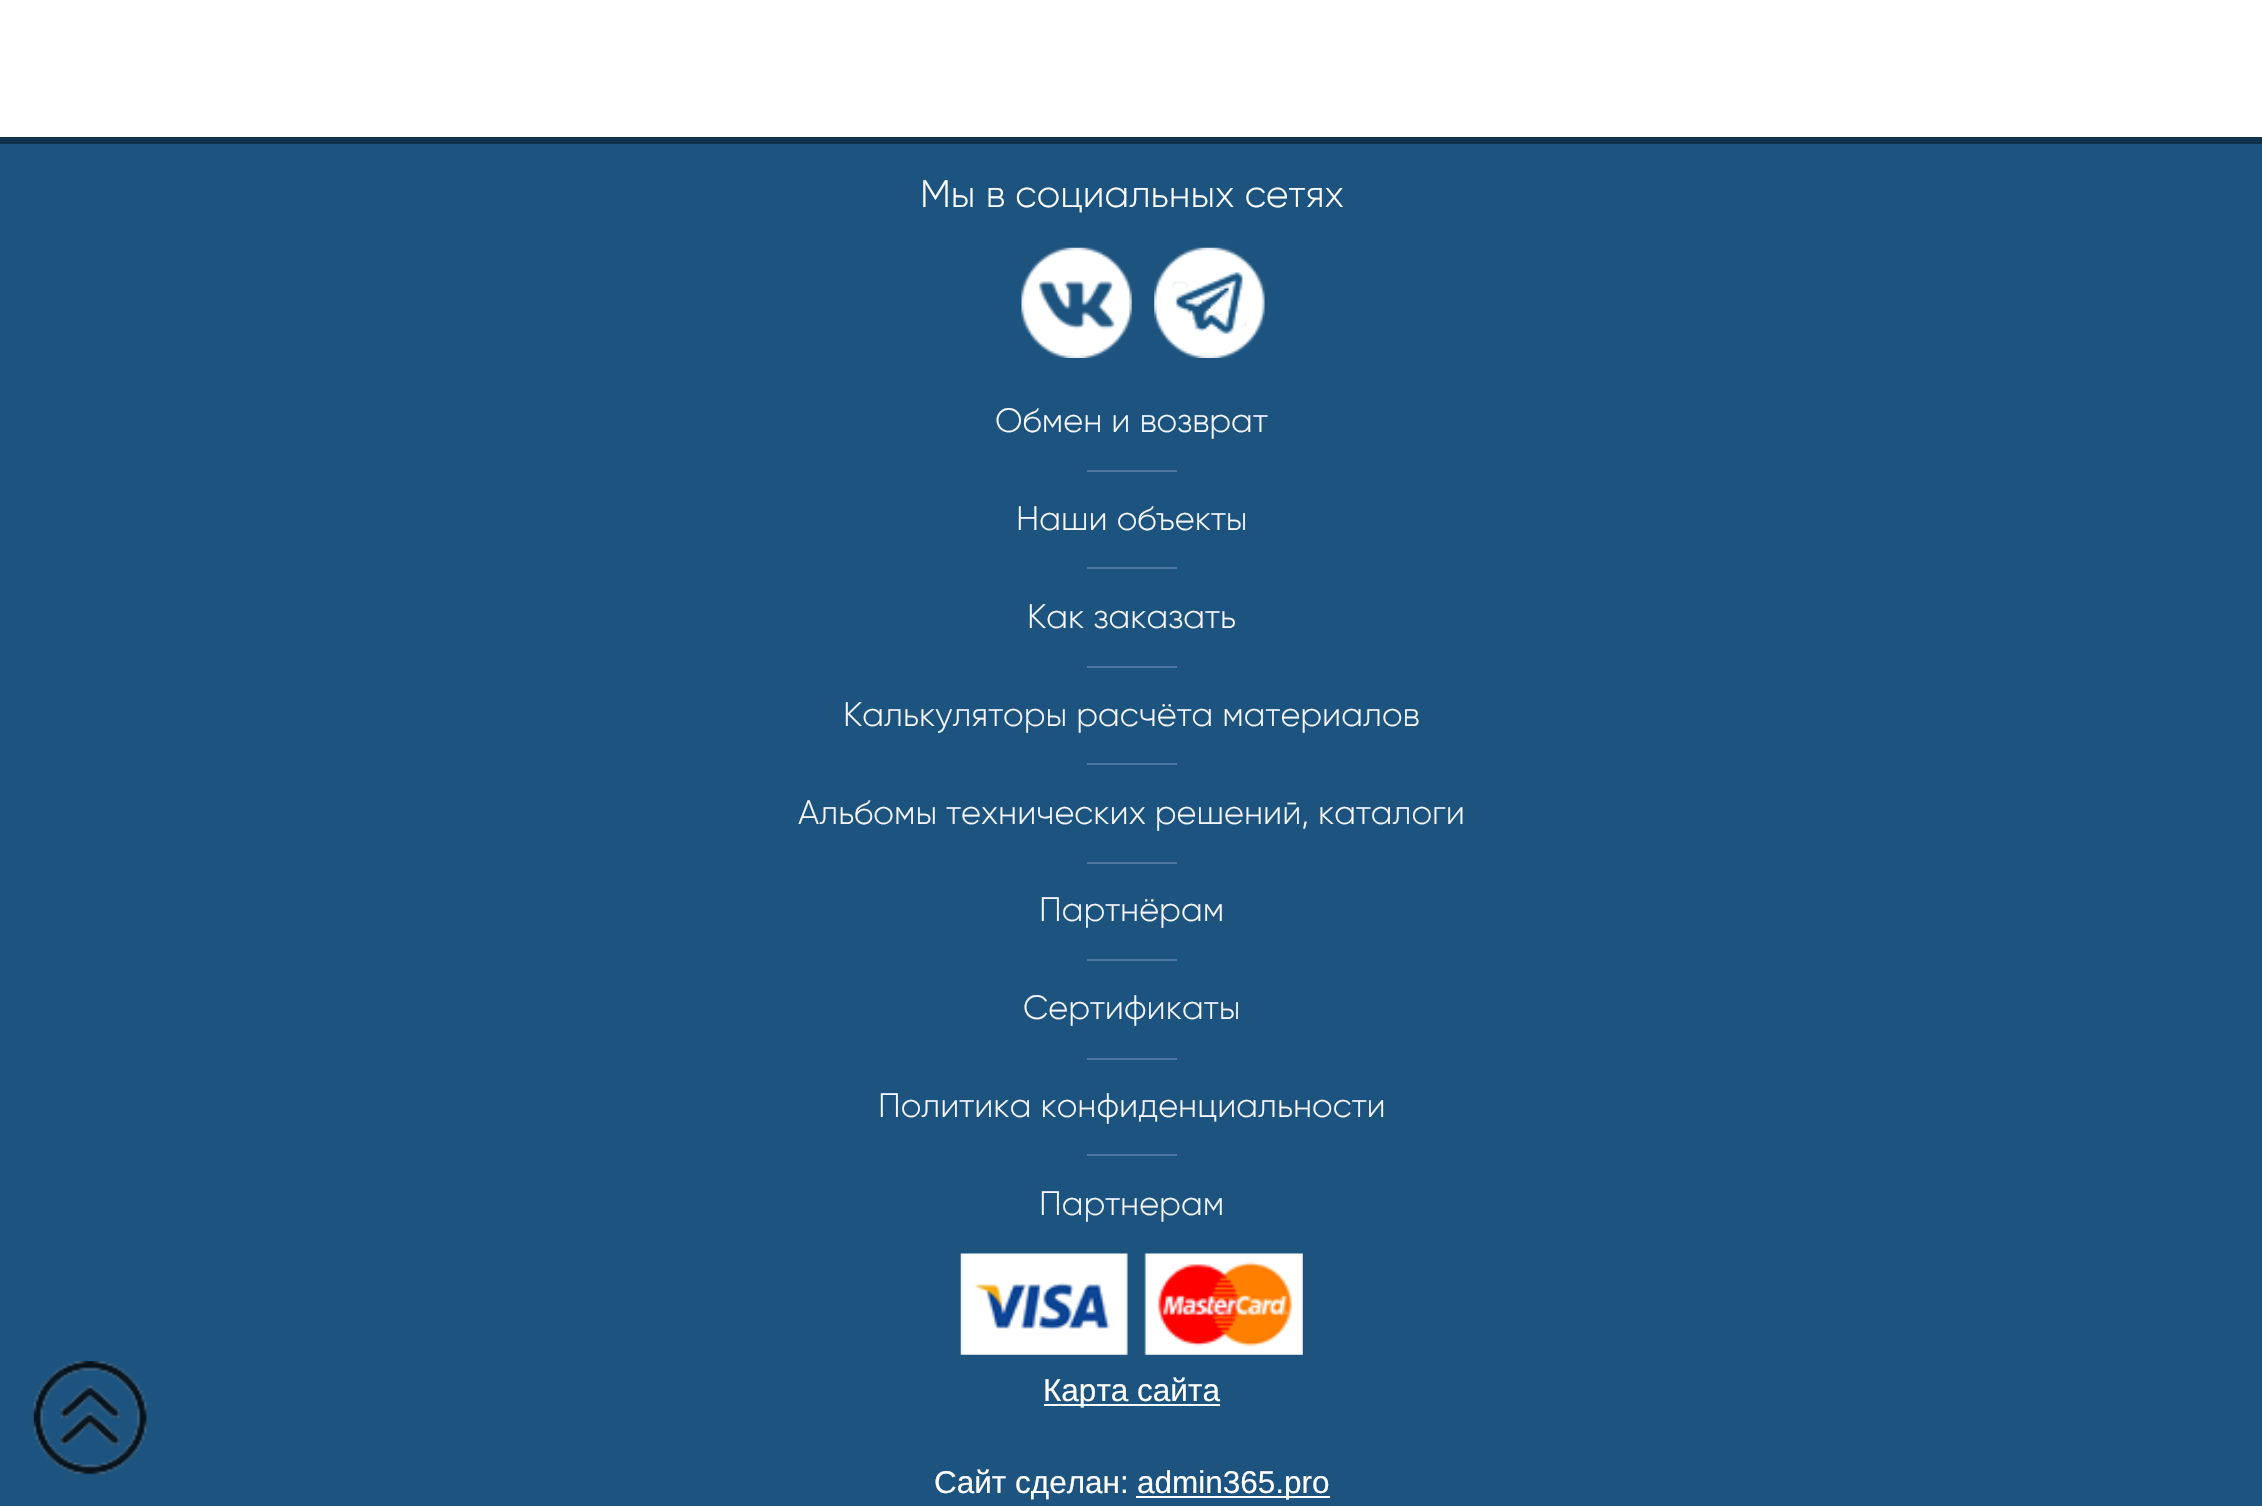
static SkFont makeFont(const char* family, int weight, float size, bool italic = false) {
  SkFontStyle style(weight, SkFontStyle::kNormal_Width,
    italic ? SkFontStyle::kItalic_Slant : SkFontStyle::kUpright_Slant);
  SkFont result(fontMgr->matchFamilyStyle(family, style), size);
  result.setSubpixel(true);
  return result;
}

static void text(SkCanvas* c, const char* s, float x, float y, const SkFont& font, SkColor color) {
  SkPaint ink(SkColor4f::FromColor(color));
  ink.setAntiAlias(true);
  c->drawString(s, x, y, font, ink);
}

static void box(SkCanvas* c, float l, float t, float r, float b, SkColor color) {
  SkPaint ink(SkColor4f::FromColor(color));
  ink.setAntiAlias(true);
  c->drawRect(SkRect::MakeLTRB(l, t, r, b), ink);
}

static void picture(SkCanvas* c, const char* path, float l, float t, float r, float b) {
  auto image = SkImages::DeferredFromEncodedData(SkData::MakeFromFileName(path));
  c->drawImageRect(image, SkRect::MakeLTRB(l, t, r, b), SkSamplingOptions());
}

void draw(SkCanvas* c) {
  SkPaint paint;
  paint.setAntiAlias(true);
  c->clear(0xffffffff);
  box(c, 0, 144, 2262, 1506, 0xff1d547f);
  picture(c, "img_01.png", 33, 1361, 147, 1475);
  box(c, 0, 137, 2262, 144, 0xff12334d);
  SkFont face1 = makeFont("Gilroy", 300, 38.25f);
  text(c, "Мы в социальных сетях", 920, 207, face1, 0xffffffff);
  picture(c, "img_02.png", 1021, 247, 1132, 358);
  picture(c, "img_03.png", 1154, 247, 1265, 358);
  SkFont face2 = makeFont("Gilroy", 300, 33.75f);
  text(c, "Обмен и возврат", 995, 432, face2, 0xfff6f7ff);
  box(c, 1087, 470, 1177, 472, 0xff4e76a0);
  text(c, "Наши объекты", 1016, 530, face2, 0xfff6f7ff);
  box(c, 1087, 567, 1177, 569, 0xff4e76a0);
  text(c, "Как заказать", 1027, 628, face2, 0xfff6f7ff);
  box(c, 1087, 666, 1177, 668, 0xff4e76a0);
  text(c, "Калькуляторы расчёта материалов", 843, 726, face2, 0xfff6f7ff);
  box(c, 1087, 763, 1177, 765, 0xff4e76a0);
  text(c, "Альбомы технических решений, каталоги", 798, 824, face2, 0xfff6f7ff);
  box(c, 1087, 862, 1177, 864, 0xff4e76a0);
  text(c, "Партнёрам", 1039, 921, face2, 0xfff6f7ff);
  box(c, 1087, 959, 1177, 961, 0xff4e76a0);
  text(c, "Сертификаты", 1023, 1019, face2, 0xfff6f7ff);
  box(c, 1087, 1058, 1177, 1060, 0xff4e76a0);
  text(c, "Политика конфиденциальности", 878, 1117, face2, 0xfff6f7ff);
  box(c, 1087, 1154, 1177, 1156, 0xff4e76a0);
  text(c, "Партнерам", 1039, 1215, face2, 0xfff6f7ff);
  picture(c, "img_04.png", 960, 1253, 1303, 1355);
  box(c, 1044, 1404, 1220, 1406, 0xffffffff);
  SkFont face3 = makeFont("Liberation Sans", 400, 31.5f);
  text(c, "Карта сайта", 1043, 1401, face3, 0xffffffff);
  text(c, "Сайт сделан:", 934, 1493, face3, 0xffffffff);
  box(c, 1136, 1496, 1330, 1498, 0xffffffff);
  text(c, "admin365.pro", 1137, 1493, face3, 0xffffffff);
}
